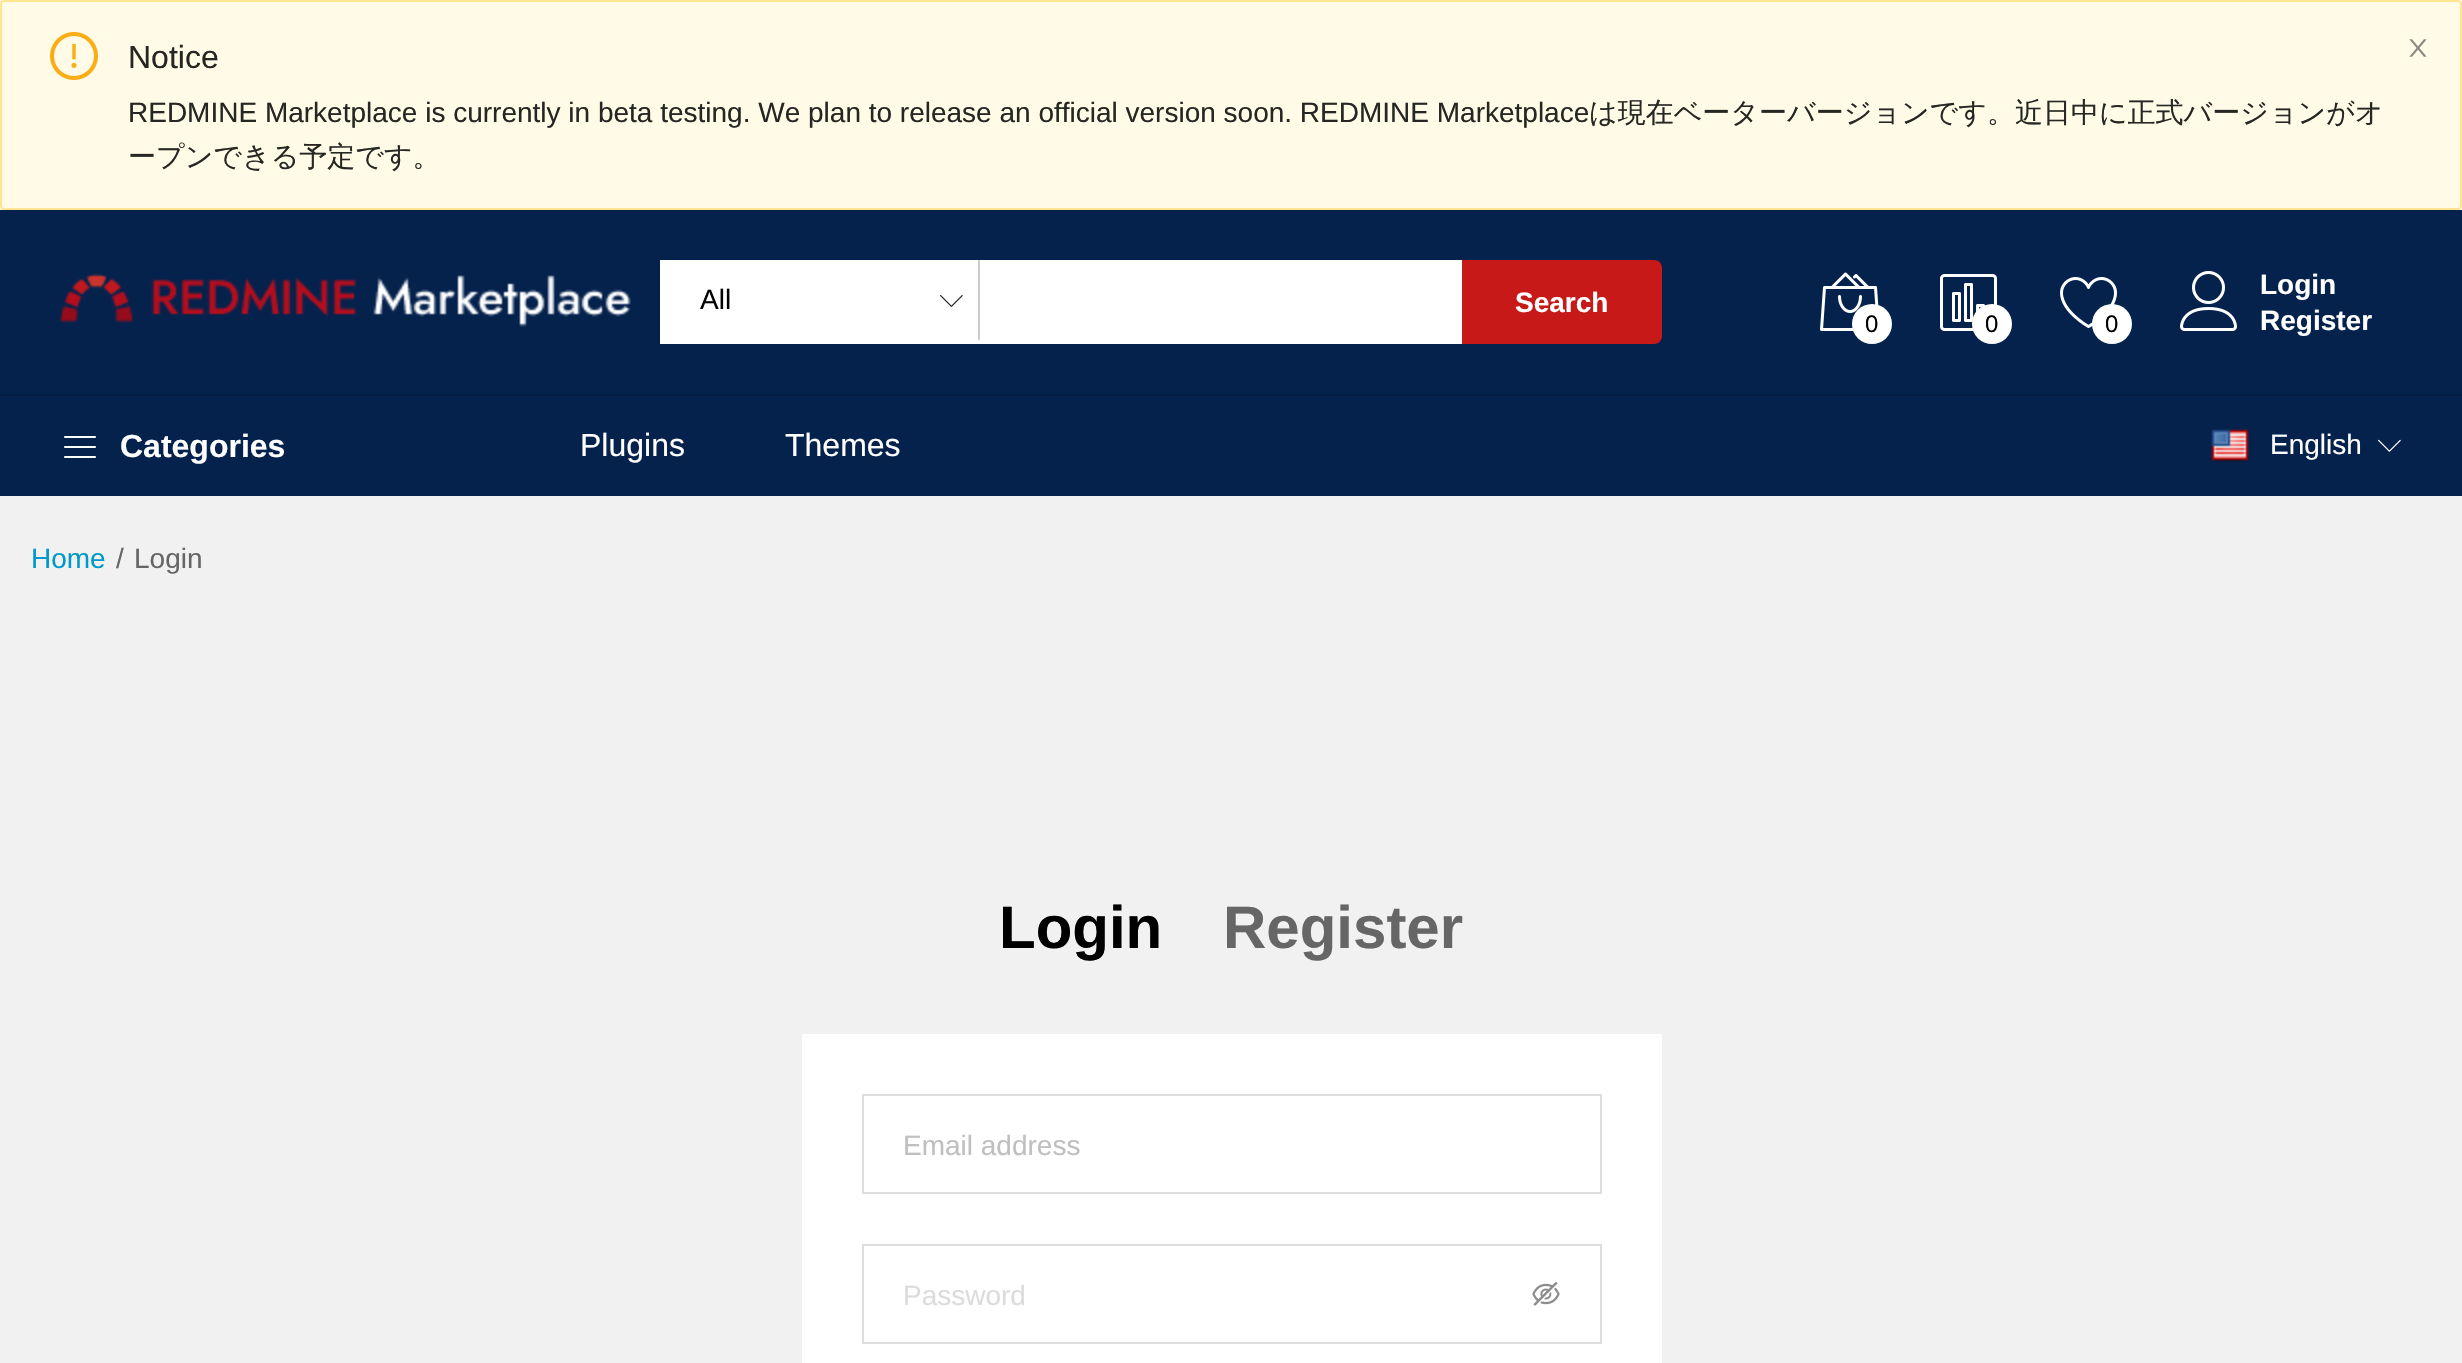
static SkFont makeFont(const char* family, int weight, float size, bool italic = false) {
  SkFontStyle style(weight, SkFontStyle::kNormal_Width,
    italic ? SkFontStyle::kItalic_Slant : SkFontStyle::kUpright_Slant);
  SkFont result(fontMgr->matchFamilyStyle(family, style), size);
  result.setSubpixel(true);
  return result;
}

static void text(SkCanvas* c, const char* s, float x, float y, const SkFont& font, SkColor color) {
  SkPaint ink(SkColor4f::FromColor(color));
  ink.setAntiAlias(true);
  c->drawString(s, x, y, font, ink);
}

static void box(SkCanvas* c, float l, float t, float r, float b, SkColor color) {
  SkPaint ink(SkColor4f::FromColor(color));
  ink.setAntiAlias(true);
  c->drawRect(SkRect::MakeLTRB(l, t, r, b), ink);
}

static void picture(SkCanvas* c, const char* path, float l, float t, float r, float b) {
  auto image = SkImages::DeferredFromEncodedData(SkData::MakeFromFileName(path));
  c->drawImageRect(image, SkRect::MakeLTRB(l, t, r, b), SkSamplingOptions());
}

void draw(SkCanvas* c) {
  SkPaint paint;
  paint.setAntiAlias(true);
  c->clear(0xffffffff);
  paint.setColor(0xfffffbe6);
  c->drawRoundRect(SkRect::MakeLTRB(1, 1, 2461, 209), 3, 3, paint);
  paint.setStyle(SkPaint::kStroke_Style);
  paint.setStrokeWidth(2);
  paint.setColor(0xffffe58f);
  c->drawRoundRect(SkRect::MakeLTRB(1, 1, 2461, 209), 3, 3, paint);
  picture(c, "img_01.png", 50, 32, 98, 80);
  SkFont face1 = makeFont("Liberation Sans", 400, 32);
  text(c, "Notice", 128, 68, face1, 0xff262623);
  SkFont face2 = makeFont("Liberation Sans", 400, 28);
  text(c, "REDMINE Marketplace is currently in beta testing. We plan to release an official version soon. REDMINE Marketplace", 128, 122, face2, 0xff262623);
  SkFont face3 = makeFont("WenQuanYi Zen Hei", 500, 28);
  text(c, "は現在ベーターバージョンです。近日中に正式バージョンがオ", 1589, 122, face3, 0xff262623);
  text(c, "ープンできる予定です。", 128, 166, face3, 0xff262623);
  picture(c, "img_02.png", 2409, 39, 2427, 57);
  box(c, 0, 210, 2462, 394, 0xff05224d);
  box(c, 0, 394, 2462, 396, 0xff041d41);
  picture(c, "img_03.png", 60, 273, 631, 327);
  box(c, 660, 260, 1462, 344, 0xffffffff);
  box(c, 978, 260, 980, 340, 0xffcccccc);
  text(c, "All", 700, 309, face2, 0xff000000);
  picture(c, "img_04.png", 940, 295, 963, 307);
  paint.setStyle(SkPaint::kFill_Style);
  paint.setColor(0xffc81919);
  c->drawPath(SkPathBuilder().moveTo(1462, 260).lineTo(1654, 260).cubicTo(1658.5f, 260, 1662, 263.5f, 1662, 268).lineTo(1662, 336).cubicTo(1662, 340.5f, 1658.5f, 344, 1654, 344).lineTo(1462, 344).close().detach(), paint);
  SkFont face4 = makeFont("Liberation Sans", 700, 28);
  text(c, "Search", 1515, 312, face4, 0xffffffff);
  picture(c, "img_05.png", 1820, 272, 1879, 331);
  paint.setColor(0xffffffff);
  c->drawCircle(1872, 324, 20, paint);
  SkFont face5 = makeFont("Liberation Sans", 400, 24);
  text(c, "0", 1865, 332, face5, 0xff000000);
  picture(c, "img_06.png", 1940, 274, 1997, 331);
  c->drawCircle(1992, 324, 20, paint);
  text(c, "0", 1985, 332, face5, 0xff000000);
  picture(c, "img_07.png", 2060, 277, 2117, 328);
  c->drawCircle(2112, 324, 20, paint);
  text(c, "0", 2105, 332, face5, 0xff000000);
  picture(c, "img_08.png", 2180, 271, 2237, 331);
  text(c, "Login", 2260, 294, face4, 0xffffffff);
  text(c, "Register", 2260, 330, face4, 0xffffffff);
  box(c, 0, 396, 2462, 496, 0xff05224d);
  picture(c, "img_09.png", 64, 436, 96, 458);
  SkFont face6 = makeFont("Liberation Sans", 700, 32);
  text(c, "Categories", 120, 457, face6, 0xffffffff);
  text(c, "Plugins", 580, 456, face1, 0xffffffff);
  text(c, "Themes", 785, 456, face1, 0xffffffff);
  picture(c, "img_10.png", 2211, 429, 2250, 463);
  text(c, "English", 2270, 454, face2, 0xffffffff);
  picture(c, "img_11.png", 2378, 439, 2401, 452);
  box(c, 0, 496, 2462, 1363, 0xfff1f1f1);
  text(c, "Home", 31, 568, face2, 0xff0099cc);
  text(c, "/", 116, 568, face2, 0xff666666);
  text(c, "Login", 134, 568, face2, 0xff666666);
  SkFont face7 = makeFont("Liberation Sans", 700, 60);
  text(c, "Login", 999, 948, face7, 0xff000000);
  text(c, "Register", 1223, 948, face7, 0xff666666);
  box(c, 802, 1034, 1662, 1363, 0xffffffff);
  paint.setStyle(SkPaint::kStroke_Style);
  paint.setColor(0xffdddddd);
  c->drawRect(SkRect::MakeLTRB(863, 1095, 1601, 1193), paint);
  text(c, "Email address", 903, 1155, face2, 0xffbfbfbf);
  c->drawRect(SkRect::MakeLTRB(863, 1245, 1601, 1343), paint);
  text(c, "Password", 903, 1305, face2, 0xffdcdcdc);
  picture(c, "img_12.png", 1532, 1281, 1560, 1306);
}
